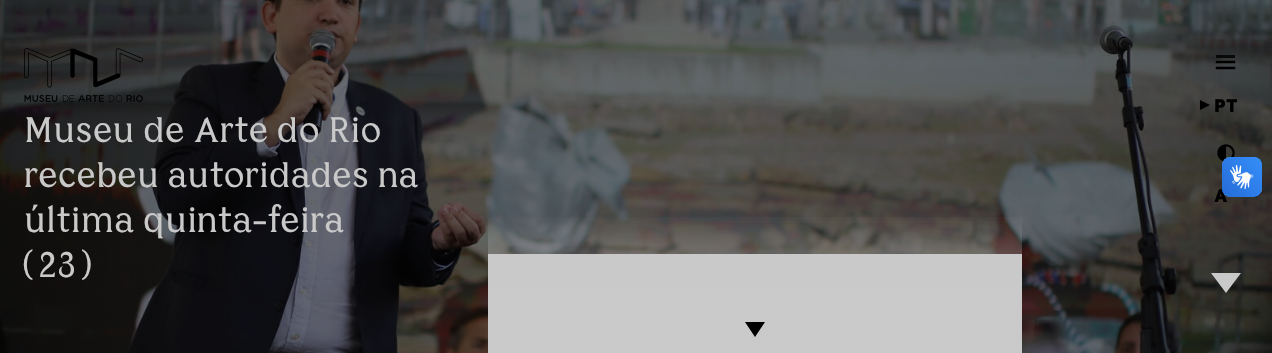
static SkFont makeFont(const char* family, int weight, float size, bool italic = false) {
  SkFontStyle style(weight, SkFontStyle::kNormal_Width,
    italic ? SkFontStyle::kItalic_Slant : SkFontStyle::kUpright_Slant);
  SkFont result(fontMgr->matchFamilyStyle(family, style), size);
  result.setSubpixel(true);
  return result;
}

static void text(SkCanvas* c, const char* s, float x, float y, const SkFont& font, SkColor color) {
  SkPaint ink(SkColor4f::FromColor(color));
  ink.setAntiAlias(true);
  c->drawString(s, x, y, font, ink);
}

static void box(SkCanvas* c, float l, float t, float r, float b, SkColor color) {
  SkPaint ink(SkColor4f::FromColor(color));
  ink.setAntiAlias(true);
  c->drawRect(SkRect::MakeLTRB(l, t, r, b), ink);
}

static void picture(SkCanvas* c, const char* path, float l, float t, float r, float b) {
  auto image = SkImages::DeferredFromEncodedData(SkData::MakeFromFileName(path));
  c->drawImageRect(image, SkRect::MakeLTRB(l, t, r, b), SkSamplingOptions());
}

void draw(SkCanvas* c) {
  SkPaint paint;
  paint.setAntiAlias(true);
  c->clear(0xffffffff);
  picture(c, "img_01.png", 0, 0, 1272, 353);
  SkFont face1 = makeFont("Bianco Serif", 400, 35);
  text(c, "Museu de Arte do Rio", 24, 142, face1, 0xffc9c9c9);
  text(c, "recebeu autoridades na", 24, 187, face1, 0xffc9c9c9);
  text(c, "última quinta-feira", 24, 232, face1, 0xffc9c9c9);
  text(c, "(23)", 24, 277, face1, 0xffc9c9c9);
  box(c, 488, 254, 1022, 352, 0xffc9c9c9);
  {
    const SkColor colors[] = {0xffc9c9c9, 0x00c9c9c9};
    const float stops[] = {0, 1};
    const SkPoint ends[] = {{755, 353}, {755, 214}};
    paint.setShader(SkGradientShader::MakeLinear(ends, colors, stops, 2, SkTileMode::kClamp));
    paint.setAlpha(255);
  }
  c->drawRect(SkRect::MakeLTRB(488, 217, 1022, 353), paint);
  paint.setShader(nullptr);
  paint.setColor(0xff000000);
  c->drawPath(SkPathBuilder().moveTo(745, 322).lineTo(765, 322).lineTo(755, 337).close().detach(), paint);
  picture(c, "img_02.png", 24, 48, 143, 102);
  paint.setStyle(SkPaint::kStroke_Style);
  paint.setStrokeWidth(2.5f);
  paint.setStrokeCap(SkPaint::kSquare_Cap);
  c->drawPath(SkPathBuilder().moveTo(1217, 68).lineTo(1234, 68).moveTo(1217, 62).lineTo(1234, 62).detach(), paint);
  box(c, 1216, 55, 1235, 58, 0xd4000000);
  paint.setStyle(SkPaint::kFill_Style);
  c->drawPath(SkPathBuilder().moveTo(1200, 110).lineTo(1200, 100).lineTo(1210, 105).close().detach(), paint);
  SkFont face2 = makeFont("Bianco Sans", 900, 18);
  text(c, "PT", 1214, 112, face2, 0xff000000);
  picture(c, "img_03.png", 1217, 144, 1235, 162);
  text(c, "A", 1214, 202, face2, 0xff000000);
  paint.setColor(0xffc9c9c9);
  c->drawPath(SkPathBuilder().moveTo(1211, 273).lineTo(1241, 273).lineTo(1226, 293).close().detach(), paint);
  picture(c, "img_04.png", 1222, 157, 1262, 197);
  picture(c, "img_05.png", 1222, 157, 1262, 197);
}
